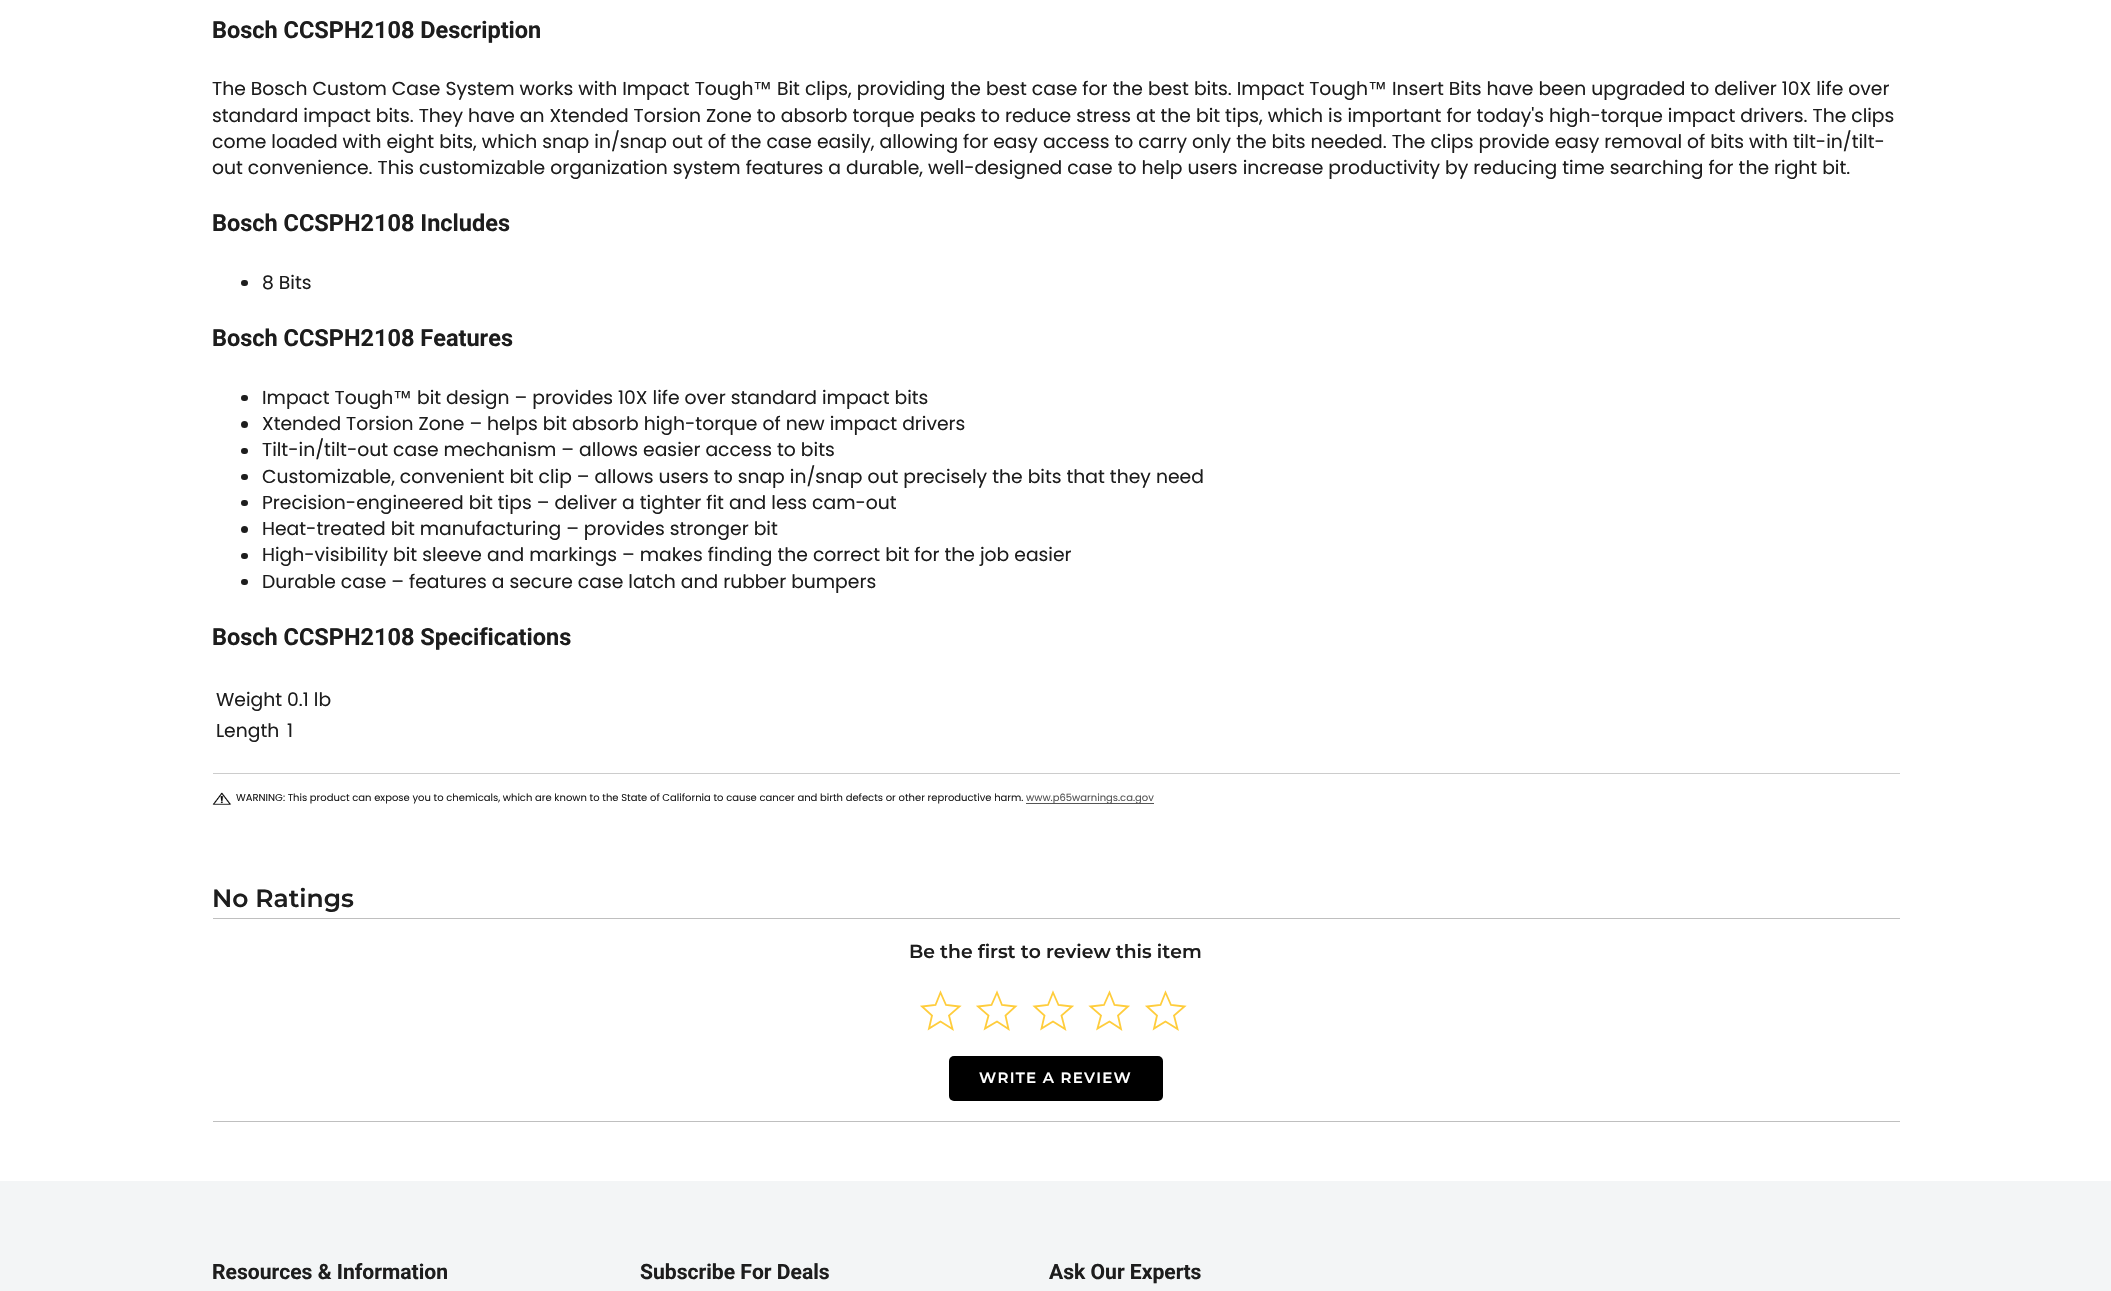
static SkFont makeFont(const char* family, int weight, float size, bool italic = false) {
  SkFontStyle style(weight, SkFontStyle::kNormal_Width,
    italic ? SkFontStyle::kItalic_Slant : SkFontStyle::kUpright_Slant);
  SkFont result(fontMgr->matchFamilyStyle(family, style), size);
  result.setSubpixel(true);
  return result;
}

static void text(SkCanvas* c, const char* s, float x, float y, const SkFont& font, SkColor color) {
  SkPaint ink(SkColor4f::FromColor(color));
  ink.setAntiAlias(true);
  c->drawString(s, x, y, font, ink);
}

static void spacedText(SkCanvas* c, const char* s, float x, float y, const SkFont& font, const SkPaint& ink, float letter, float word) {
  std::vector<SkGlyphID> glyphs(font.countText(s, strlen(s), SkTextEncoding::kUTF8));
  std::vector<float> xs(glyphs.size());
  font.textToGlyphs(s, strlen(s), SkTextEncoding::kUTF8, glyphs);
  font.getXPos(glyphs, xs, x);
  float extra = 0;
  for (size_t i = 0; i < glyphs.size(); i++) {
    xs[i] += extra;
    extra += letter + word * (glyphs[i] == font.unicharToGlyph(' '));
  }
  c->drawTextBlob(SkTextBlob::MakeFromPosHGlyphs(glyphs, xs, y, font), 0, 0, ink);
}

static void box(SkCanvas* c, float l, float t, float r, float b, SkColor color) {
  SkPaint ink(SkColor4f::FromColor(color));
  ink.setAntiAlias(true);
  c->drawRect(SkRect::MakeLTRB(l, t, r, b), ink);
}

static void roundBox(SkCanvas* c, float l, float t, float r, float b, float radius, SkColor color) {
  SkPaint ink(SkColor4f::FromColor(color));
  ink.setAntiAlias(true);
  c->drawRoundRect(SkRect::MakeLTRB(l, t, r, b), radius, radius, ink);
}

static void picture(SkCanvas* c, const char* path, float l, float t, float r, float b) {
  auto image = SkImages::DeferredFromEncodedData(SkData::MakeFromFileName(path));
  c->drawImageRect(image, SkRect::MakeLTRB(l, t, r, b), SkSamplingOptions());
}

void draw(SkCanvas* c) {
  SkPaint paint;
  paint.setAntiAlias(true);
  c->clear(0xffffffff);
  box(c, 213, 773, 1900, 774, 0xffcccccc);
  SkFont face1 = makeFont("Roboto", 700, 23.5f);
  text(c, "Bosch CCSPH2108 Description", 212, 38, face1, 0xff1d1d1d);
  SkFont face2 = makeFont("Poppins", 400, 18.75f);
  text(c, "The Bosch Custom Case System works with Impact Tough", 212, 95, face2, 0xff1d1d1d);
  SkFont face3 = makeFont("Liberation Sans", 400, 18.75f);
  text(c, "™", 753, 95, face3, 0xff1d1d1d);
  text(c, "Bit clips, providing the best case for the best bits. Impact Tough", 777, 95, face2, 0xff1d1d1d);
  text(c, "™", 1368, 95, face3, 0xff1d1d1d);
  text(c, "Insert Bits have been upgraded to deliver 10X life over", 1392, 95, face2, 0xff1d1d1d);
  text(c, "standard impact bits. They have an Xtended Torsion Zone to absorb torque peaks to reduce stress at the bit tips, which is important for today's high-torque impact drivers. The clips", 212, 122, face2, 0xff1d1d1d);
  text(c, "come loaded with eight bits, which snap in/snap out of the case easily, allowing for easy access to carry only the bits needed. The clips provide easy removal of bits with tilt-in/tilt-", 212, 148, face2, 0xff1d1d1d);
  text(c, "out convenience. This customizable organization system features a durable, well-designed case to help users increase productivity by reducing time searching for the right bit.", 212, 174, face2, 0xff1d1d1d);
  text(c, "Bosch CCSPH2108 Includes", 212, 231, face1, 0xff1d1d1d);
  roundBox(c, 241, 280, 248, 286, 3, 0xff1d1d1d);
  text(c, "8 Bits", 262, 289, face2, 0xff1d1d1d);
  text(c, "Bosch CCSPH2108 Features", 212, 346, face1, 0xff1d1d1d);
  roundBox(c, 241, 395, 248, 401, 3, 0xff1d1d1d);
  text(c, "Impact Tough", 262, 404, face2, 0xff1d1d1d);
  text(c, "™", 393, 404, face3, 0xff1d1d1d);
  text(c, "bit design – provides 10X life over standard impact bits", 417, 404, face2, 0xff1d1d1d);
  paint.setColor(0xff1d1d1d);
  c->drawCircle(244.5f, 424.5f, 3.5f, paint);
  text(c, "Xtended Torsion Zone – helps bit absorb high-torque of new impact drivers", 262, 430, face2, 0xff1d1d1d);
  roundBox(c, 241, 448, 248, 454, 3, 0xff1d1d1d);
  text(c, "Tilt-in/tilt-out case mechanism – allows easier access to bits", 262, 456, face2, 0xff1d1d1d);
  roundBox(c, 241, 474, 248, 480, 3, 0xff1d1d1d);
  text(c, "Customizable, convenient bit clip – allows users to snap in/snap out precisely the bits that they need", 262, 483, face2, 0xff1d1d1d);
  roundBox(c, 241, 500, 248, 506, 3, 0xff1d1d1d);
  text(c, "Precision-engineered bit tips – deliver a tighter fit and less cam-out", 262, 509, face2, 0xff1d1d1d);
  c->drawCircle(244.5f, 529.5f, 3.5f, paint);
  text(c, "Heat-treated bit manufacturing – provides stronger bit", 262, 535, face2, 0xff1d1d1d);
  roundBox(c, 241, 553, 248, 559, 3, 0xff1d1d1d);
  text(c, "High-visibility bit sleeve and markings – makes finding the correct bit for the job easier", 262, 561, face2, 0xff1d1d1d);
  roundBox(c, 241, 579, 248, 585, 3, 0xff1d1d1d);
  text(c, "Durable case – features a secure case latch and rubber bumpers", 262, 588, face2, 0xff1d1d1d);
  text(c, "Bosch CCSPH2108 Specifications", 212, 645, face1, 0xff1d1d1d);
  text(c, "Weight 0.1 lb", 216, 706, face2, 0xff1d1d1d);
  text(c, "Length", 216, 737, face2, 0xff1d1d1d);
  text(c, "1", 287, 737, face2, 0xff1d1d1d);
  picture(c, "img_01.png", 212, 792, 232, 805);
  SkFont face4 = makeFont("Poppins", 400, 10);
  text(c, "WARNING: This product can expose you to chemicals, which are known to the State of California to cause cancer and birth defects or other reproductive harm.", 236, 801, face4, 0xff1d1d1d);
  box(c, 1026, 803, 1154, 804, 0xff555555);
  text(c, "www.p65warnings.ca.gov", 1026, 801, face4, 0xff555555);
  SkFont face5 = makeFont("Montserrat", 600, 25);
  text(c, "No Ratings", 212, 907, face5, 0xff1d1d1d);
  box(c, 213, 918, 1900, 919, 0xffbfbfbf);
  box(c, 213, 1121, 1900, 1122, 0xffbfbfbf);
  SkFont face6 = makeFont("Montserrat", 600, 18.75f);
  text(c, "Be the first to review this item", 909, 958, face6, 0xff1d1d1d);
  paint.setStyle(SkPaint::kStroke_Style);
  paint.setStrokeWidth(1.8f);
  paint.setColor(0xffffcd3c);
  c->drawPath(SkPathBuilder().moveTo(940.5f, 1021.5f).lineTo(929, 1028.5f).lineTo(932, 1015.5f).lineTo(922, 1006.5f).lineTo(935.5f, 1005).lineTo(940.5f, 992.5f).lineTo(946, 1005).lineTo(959.5f, 1006.5f).lineTo(949, 1015.5f).lineTo(952.5f, 1029).close().detach(), paint);
  c->drawPath(SkPathBuilder().moveTo(997, 1021.5f).lineTo(985, 1028.5f).lineTo(988.5f, 1015.5f).lineTo(978, 1006.5f).lineTo(991.5f, 1005).lineTo(997, 992.5f).lineTo(1002, 1005).lineTo(1015.5f, 1006.5f).lineTo(1005.5f, 1015.5f).lineTo(1008.5f, 1029).close().detach(), paint);
  c->drawPath(SkPathBuilder().moveTo(1053, 1021.5f).lineTo(1041.5f, 1028.5f).lineTo(1044.5f, 1015.5f).lineTo(1034.5f, 1006.5f).lineTo(1048, 1005).lineTo(1053, 992.5f).lineTo(1058.5f, 1005).lineTo(1072, 1006.5f).lineTo(1061.5f, 1015.5f).lineTo(1065, 1029).close().detach(), paint);
  c->drawPath(SkPathBuilder().moveTo(1109.5f, 1021.5f).lineTo(1097.5f, 1028.5f).lineTo(1101, 1015.5f).lineTo(1090.5f, 1006.5f).lineTo(1104, 1005).lineTo(1109.5f, 992.5f).lineTo(1114.5f, 1005).lineTo(1128, 1006.5f).lineTo(1118, 1015.5f).lineTo(1121, 1029).close().detach(), paint);
  c->drawPath(SkPathBuilder().moveTo(1165.5f, 1021.5f).lineTo(1154, 1028.5f).lineTo(1157, 1015.5f).lineTo(1147, 1006.5f).lineTo(1160.5f, 1005).lineTo(1165.5f, 992.5f).lineTo(1171, 1005).lineTo(1184.5f, 1006.5f).lineTo(1174, 1015.5f).lineTo(1177.5f, 1029).close().detach(), paint);
  roundBox(c, 949, 1056, 1163, 1101, 5, 0xff000000);
  SkFont face7 = makeFont("Montserrat", 600, 15);
  paint.setStyle(SkPaint::kFill_Style);
  paint.setColor(0xffffffff);
  spacedText(c, "WRITE A REVIEW", 979, 1083, face7, paint, 1.25f, 0);
  box(c, 0, 1181, 2111, 1291, 0xfff3f5f6);
  SkFont face8 = makeFont("Roboto", 700, 21.1f);
  text(c, "Resources & Information", 212, 1279, face8, 0xff1d1d1d);
  text(c, "Subscribe For Deals", 640, 1279, face8, 0xff1d1d1d);
  text(c, "Ask Our Experts", 1049, 1279, face8, 0xff1d1d1d);
}
